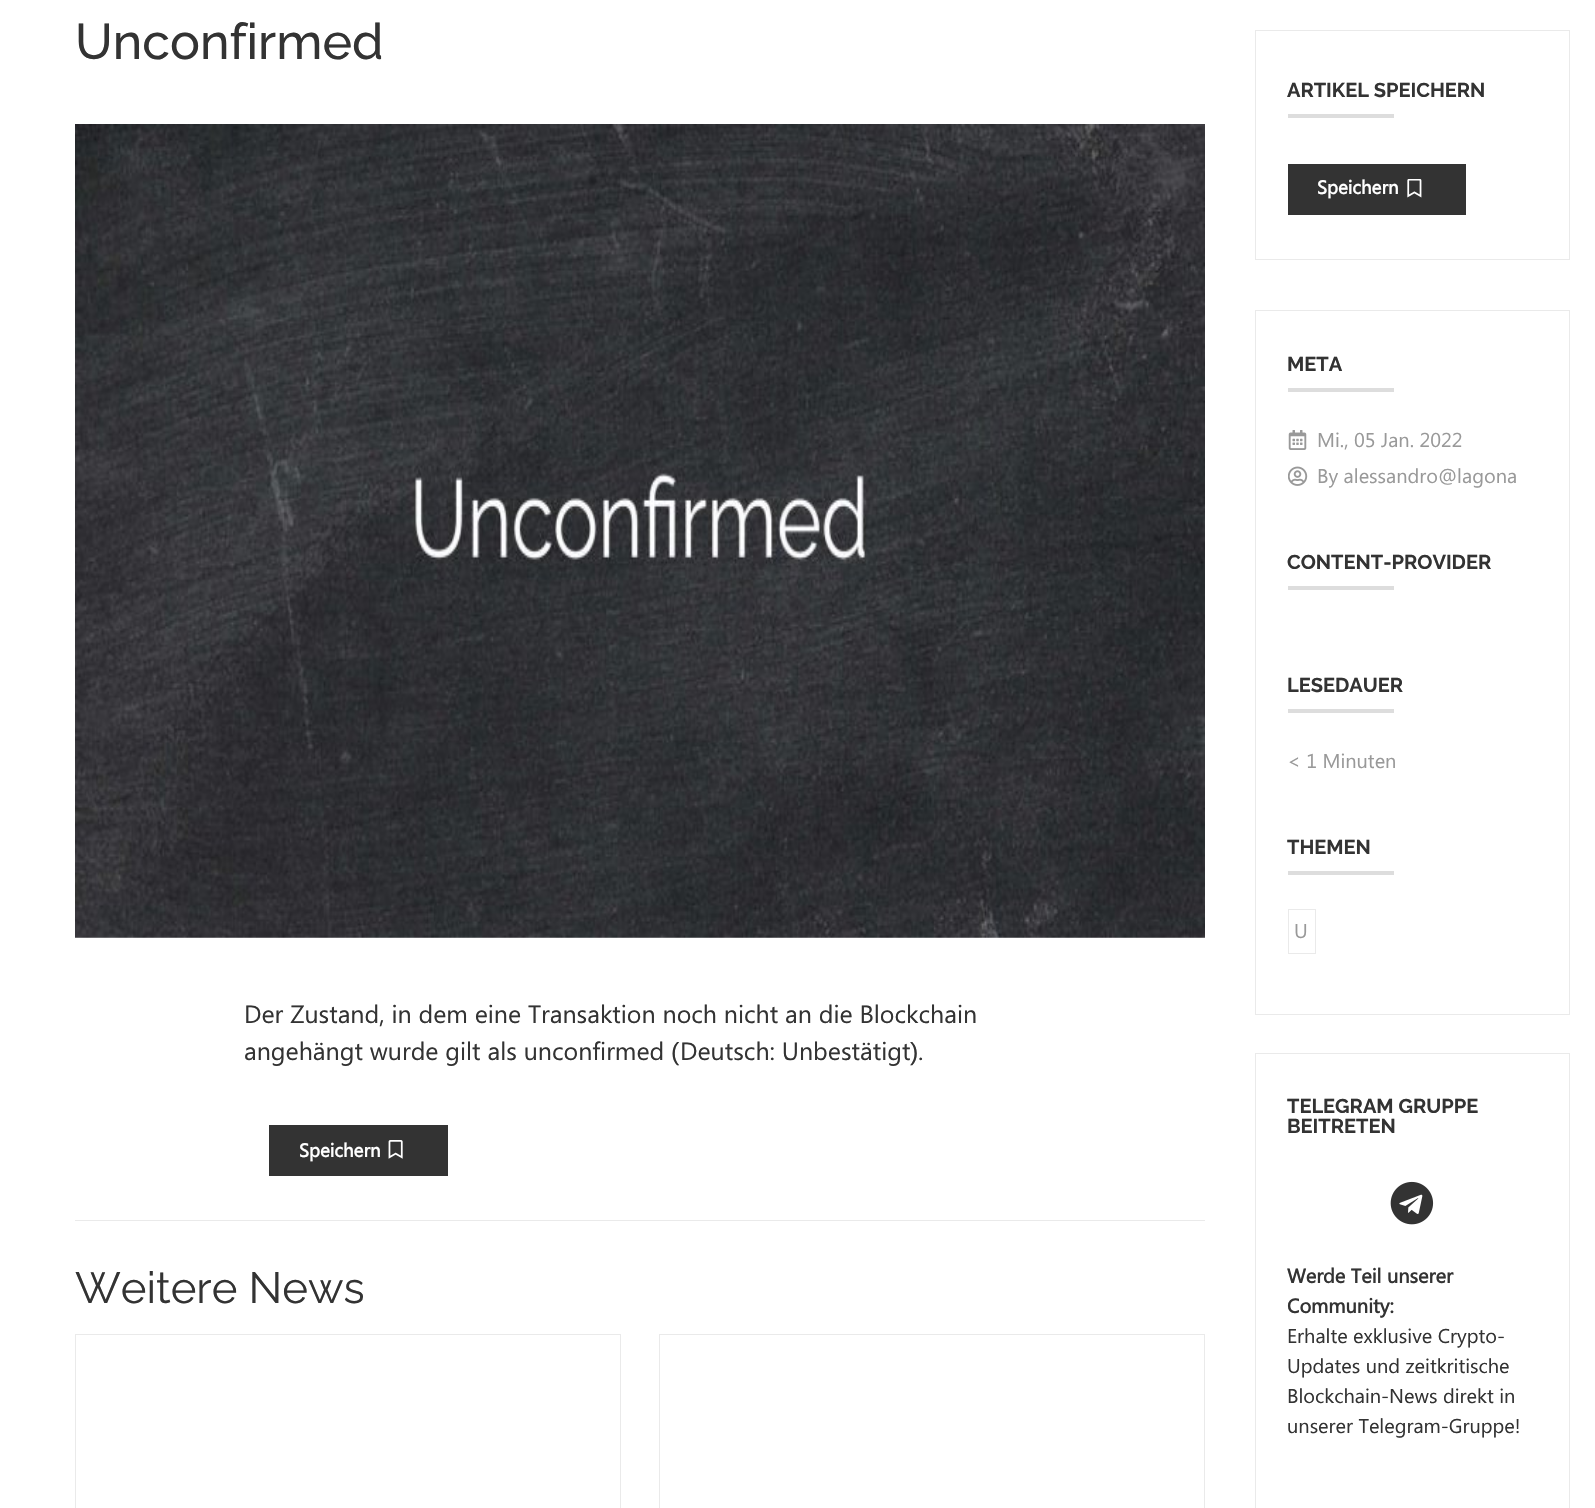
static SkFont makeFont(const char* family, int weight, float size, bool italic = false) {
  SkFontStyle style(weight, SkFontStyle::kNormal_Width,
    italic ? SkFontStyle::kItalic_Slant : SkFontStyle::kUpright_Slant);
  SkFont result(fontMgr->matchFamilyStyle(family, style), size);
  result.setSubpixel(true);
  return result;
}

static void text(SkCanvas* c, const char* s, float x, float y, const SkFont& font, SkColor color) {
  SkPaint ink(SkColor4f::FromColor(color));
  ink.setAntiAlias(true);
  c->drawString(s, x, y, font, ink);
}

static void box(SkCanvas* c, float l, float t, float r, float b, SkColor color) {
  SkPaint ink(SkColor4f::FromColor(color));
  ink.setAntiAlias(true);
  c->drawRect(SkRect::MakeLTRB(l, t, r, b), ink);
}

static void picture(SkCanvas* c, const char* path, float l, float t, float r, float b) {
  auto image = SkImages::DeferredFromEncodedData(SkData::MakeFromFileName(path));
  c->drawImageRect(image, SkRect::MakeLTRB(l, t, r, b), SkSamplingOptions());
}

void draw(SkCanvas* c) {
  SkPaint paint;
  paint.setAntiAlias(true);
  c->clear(0xffffffff);
  SkFont face1 = makeFont("Raleway", 500, 50);
  text(c, "Unconfirmed", 75, 59, face1, 0xff333333);
  picture(c, "img_01.png", 75, 124, 1205, 938);
  SkFont face2 = makeFont("Segoe UI", 400, 25);
  text(c, "Der Zustand, in dem eine Transaktion noch nicht an die Blockchain", 244, 1023, face2, 0xff333333);
  text(c, "angehängt wurde gilt als unconfirmed", 244, 1060, face2, 0xff333333);
  SkFont face3 = makeFont("Liberation Sans", 400, 25);
  text(c, "(", 671, 1060, face3, 0xff333333);
  text(c, "Deutsch: Unbestätigt", 680, 1060, face2, 0xff333333);
  text(c, ")", 910, 1060, face3, 0xff333333);
  text(c, ".", 918, 1060, face2, 0xff333333);
  box(c, 269, 1125, 448, 1176, 0xff333333);
  SkFont face4 = makeFont("Segoe UI", 700, 18.75f);
  text(c, "Speichern", 299, 1157, face4, 0xffffffff);
  picture(c, "img_02.png", 388, 1140, 403, 1159);
  box(c, 75, 1220, 1205, 1221, 0xffeaeaea);
  SkFont face5 = makeFont("Raleway", 400, 43.75f);
  text(c, "Weitere News", 75, 1303, face5, 0xff333333);
  paint.setStyle(SkPaint::kStroke_Style);
  paint.setStrokeWidth(1);
  paint.setColor(0xffeaeaea);
  c->drawRect(SkRect::MakeLTRB(75.5f, 1334.5f, 620.5f, 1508.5f), paint);
  c->drawRect(SkRect::MakeLTRB(659.5f, 1334.5f, 1204.5f, 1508.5f), paint);
  c->drawRect(SkRect::MakeLTRB(1255.5f, 30.5f, 1569.5f, 259.5f), paint);
  SkFont face6 = makeFont("Raleway", 700, 20);
  text(c, "ARTIKEL SPEICHERN", 1287, 97, face6, 0xff333333);
  box(c, 1288, 114, 1394, 118, 0xffdddddd);
  box(c, 1288, 164, 1466, 215, 0xff333333);
  text(c, "Speichern", 1317, 194, face4, 0xffffffff);
  picture(c, "img_03.png", 1407, 179, 1422, 198);
  c->drawRect(SkRect::MakeLTRB(1255.5f, 310.5f, 1569.5f, 1014.5f), paint);
  text(c, "META", 1287, 371, face6, 0xff333333);
  box(c, 1288, 388, 1394, 392, 0xffdddddd);
  picture(c, "img_04.png", 1288, 430, 1307, 450);
  SkFont face7 = makeFont("Segoe UI", 400, 20);
  text(c, "Mi., 05 Jan. 2022", 1317, 447, face7, 0xff999999);
  picture(c, "img_05.png", 1288, 466, 1308, 486);
  text(c, "By alessandro@lagona", 1317, 483, face7, 0xff999999);
  text(c, "CONTENT-PROVIDER", 1287, 569, face6, 0xff333333);
  box(c, 1288, 586, 1394, 590, 0xffdddddd);
  text(c, "LESEDAUER", 1287, 692, face6, 0xff333333);
  box(c, 1288, 709, 1394, 713, 0xffdddddd);
  text(c, "< 1 Minuten", 1287, 768, face7, 0xff999999);
  text(c, "THEMEN", 1287, 854, face6, 0xff333333);
  box(c, 1288, 871, 1394, 875, 0xffdddddd);
  c->drawRect(SkRect::MakeLTRB(1288.5f, 909.5f, 1315.5f, 953.5f), paint);
  text(c, "U", 1294, 938, face7, 0xff999999);
  c->drawRect(SkRect::MakeLTRB(1255.5f, 1053.5f, 1569.5f, 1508.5f), paint);
  text(c, "TELEGRAM GRUPPE", 1287, 1113, face6, 0xff333333);
  text(c, "BEITRETEN", 1287, 1133, face6, 0xff333333);
  picture(c, "img_06.png", 1390, 1181, 1434, 1225);
  SkFont face8 = makeFont("Segoe UI", 700, 20);
  text(c, "Werde Teil unserer", 1287, 1283, face8, 0xff333333);
  text(c, "Community:", 1287, 1313, face8, 0xff333333);
  text(c, "Erhalte exklusive Crypto-", 1287, 1343, face7, 0xff333333);
  text(c, "Updates und zeitkritische", 1287, 1373, face7, 0xff333333);
  text(c, "Blockchain-News direkt in", 1287, 1403, face7, 0xff333333);
  text(c, "unserer Telegram-Gruppe!", 1287, 1433, face7, 0xff333333);
}
